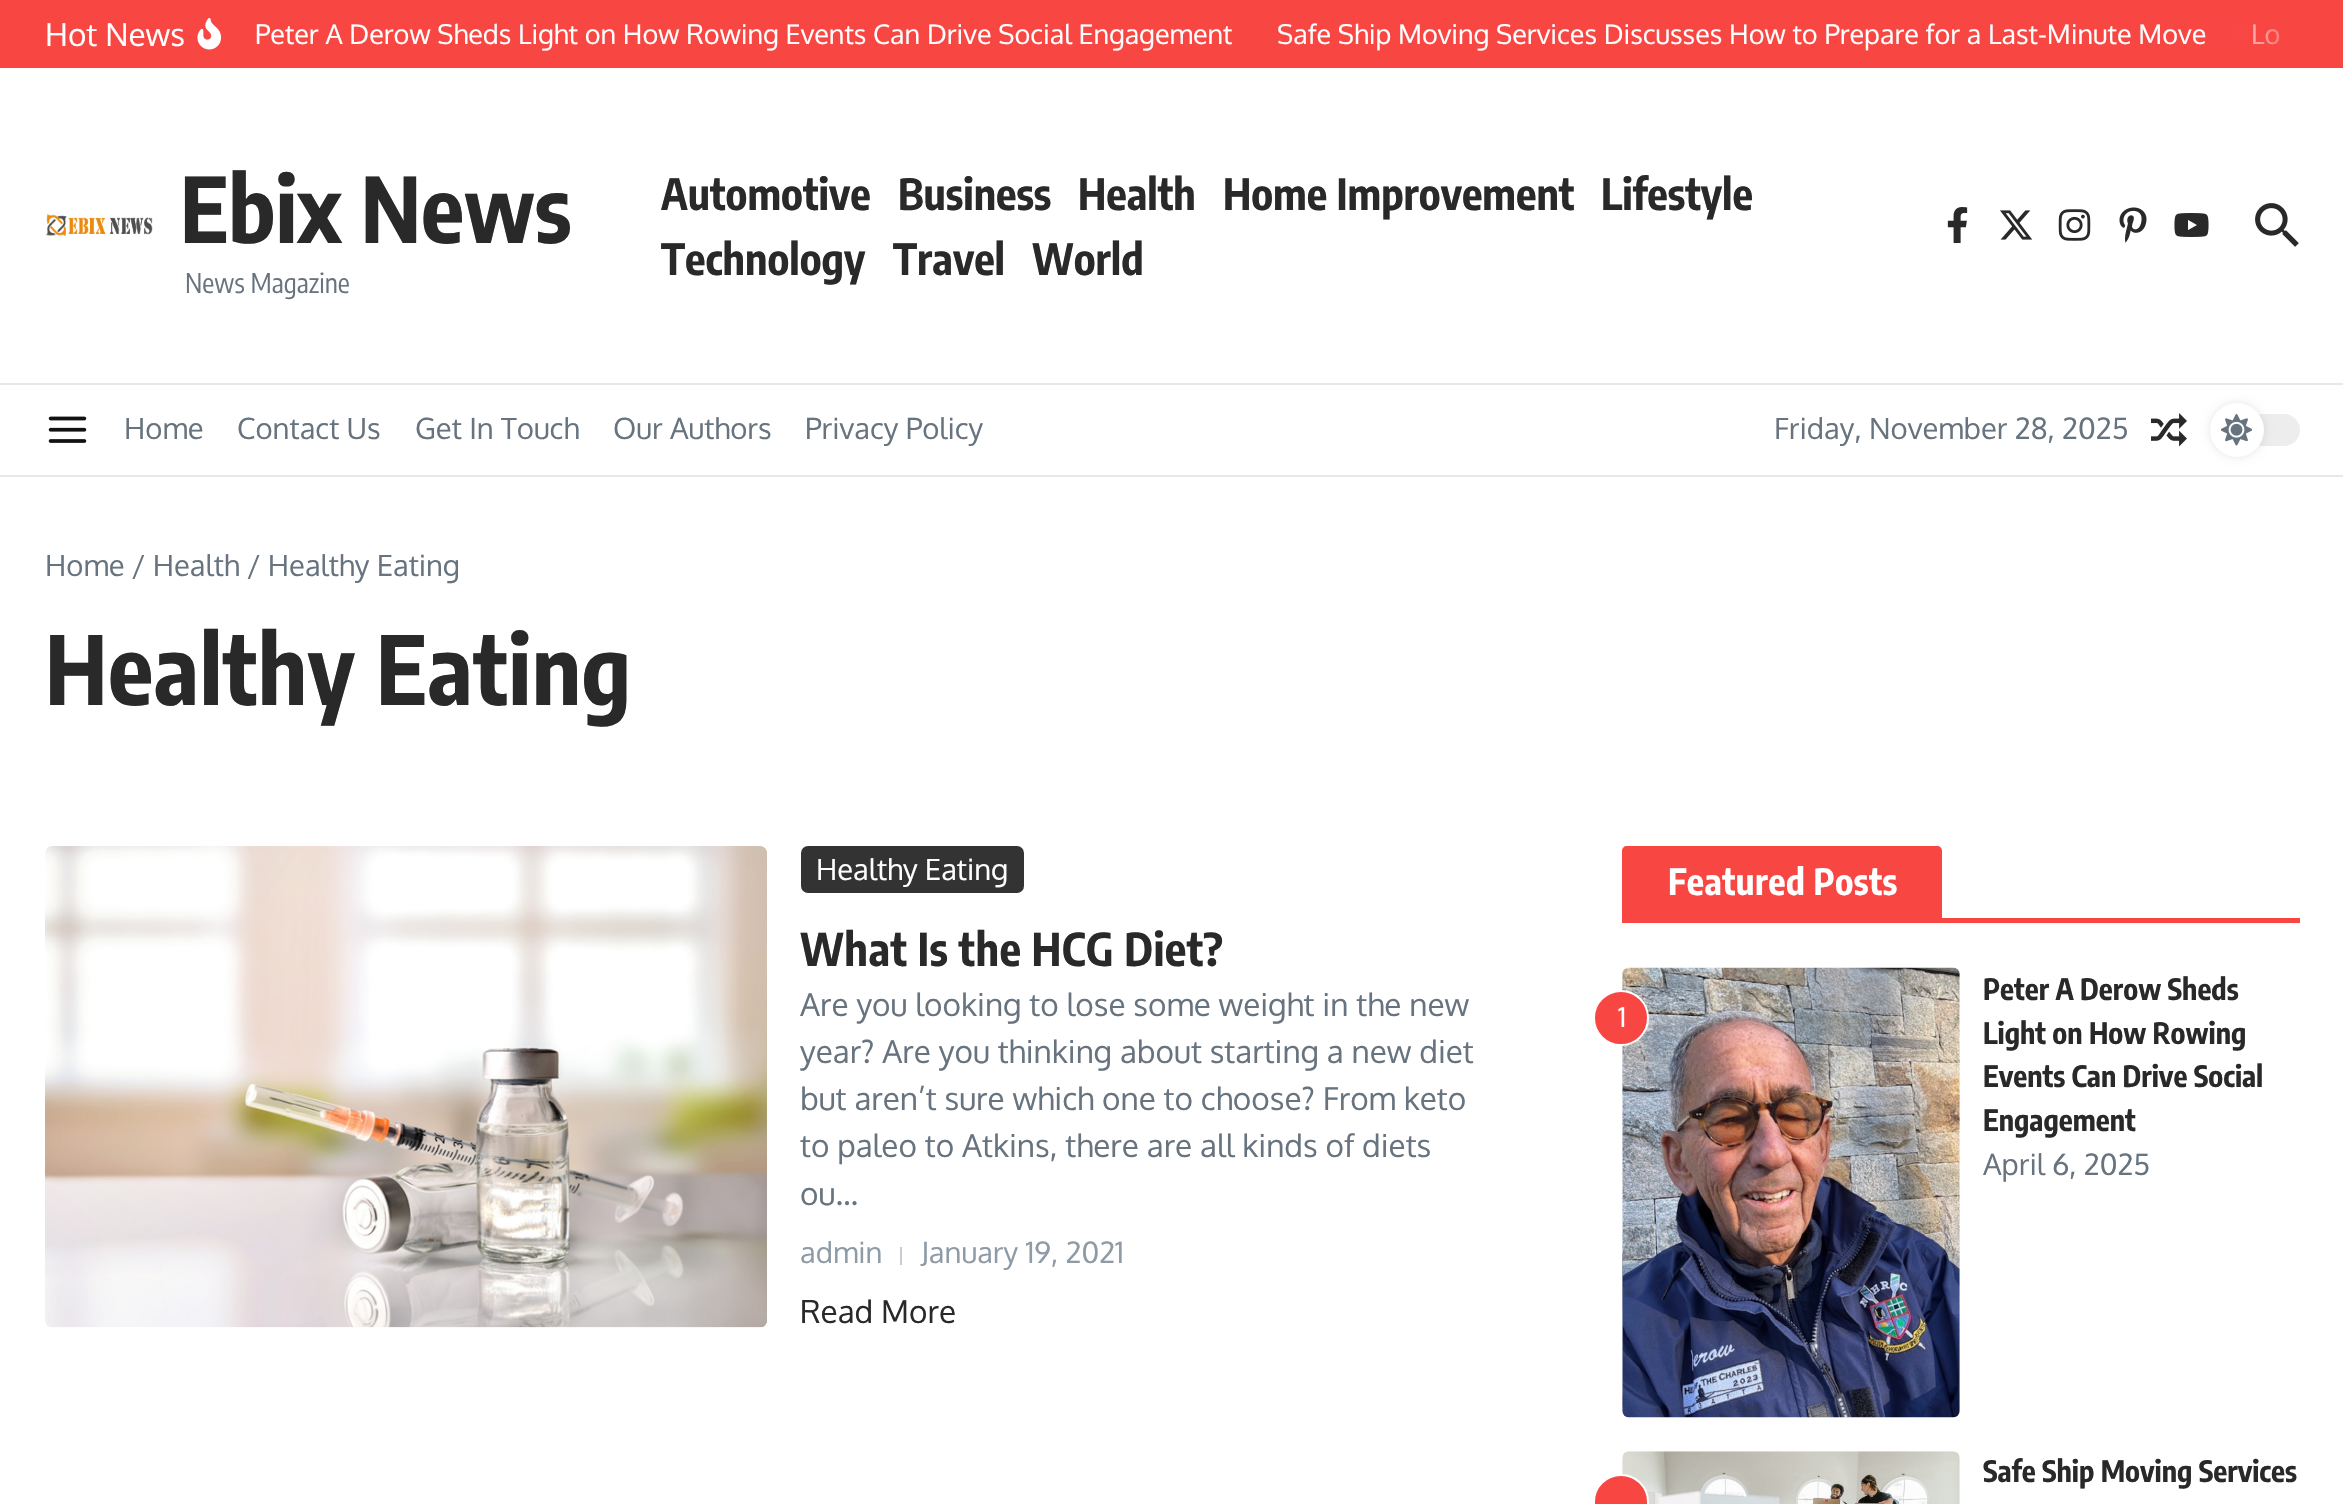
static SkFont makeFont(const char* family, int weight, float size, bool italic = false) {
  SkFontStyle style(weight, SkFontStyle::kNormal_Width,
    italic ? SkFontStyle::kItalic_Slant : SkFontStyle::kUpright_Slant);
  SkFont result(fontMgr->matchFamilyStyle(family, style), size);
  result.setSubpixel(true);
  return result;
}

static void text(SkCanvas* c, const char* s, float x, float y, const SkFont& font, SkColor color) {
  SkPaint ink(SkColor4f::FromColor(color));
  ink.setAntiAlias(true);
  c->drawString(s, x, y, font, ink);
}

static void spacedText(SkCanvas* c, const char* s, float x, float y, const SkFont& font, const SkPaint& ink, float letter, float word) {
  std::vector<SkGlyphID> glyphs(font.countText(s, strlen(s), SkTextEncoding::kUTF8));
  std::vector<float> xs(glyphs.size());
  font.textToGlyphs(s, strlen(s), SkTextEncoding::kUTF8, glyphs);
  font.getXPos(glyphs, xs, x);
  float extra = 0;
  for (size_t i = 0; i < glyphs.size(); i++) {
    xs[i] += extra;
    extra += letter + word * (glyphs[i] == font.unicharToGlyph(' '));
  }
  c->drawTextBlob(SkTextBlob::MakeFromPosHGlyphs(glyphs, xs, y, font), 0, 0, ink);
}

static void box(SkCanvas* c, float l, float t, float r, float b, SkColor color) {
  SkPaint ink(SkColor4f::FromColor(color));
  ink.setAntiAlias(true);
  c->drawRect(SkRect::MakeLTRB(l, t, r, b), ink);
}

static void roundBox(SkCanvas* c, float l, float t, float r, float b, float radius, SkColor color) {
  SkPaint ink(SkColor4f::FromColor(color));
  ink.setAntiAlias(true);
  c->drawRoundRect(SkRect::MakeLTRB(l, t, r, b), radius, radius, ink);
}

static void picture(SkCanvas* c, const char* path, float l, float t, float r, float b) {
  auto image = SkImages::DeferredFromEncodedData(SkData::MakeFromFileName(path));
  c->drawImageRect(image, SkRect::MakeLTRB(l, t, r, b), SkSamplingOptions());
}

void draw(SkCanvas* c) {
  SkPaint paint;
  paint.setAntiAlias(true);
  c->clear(0xffffffff);
  box(c, 0, 0, 2343, 68, 0xfff84643);
  SkFont face1 = makeFont("Oxygen", 400, 31.5f);
  text(c, "Hot News", 45, 46, face1, 0xffffffff);
  picture(c, "img_01.png", 197, 18, 222, 50);
  SkFont face2 = makeFont("Oxygen", 400, 27);
  text(c, "Peter A Derow Sheds Light on How Rowing Events Can Drive Social Engagement", 255, 44, face2, 0xffffffff);
  text(c, "Safe Ship Moving Services Discusses How to Prepare for a Last-Minute Move", 1277, 44, face2, 0xffffffff);
  text(c, "Lo", 2251, 44, face2, 0xffffffff);
  {
    const SkColor colors[] = {0x00f84643, 0xfff84643};
    const float stops[] = {0, 1};
    const SkPoint ends[] = {{2201, 35}, {2313, 35}};
    paint.setShader(SkGradientShader::MakeLinear(ends, colors, stops, 2, SkTileMode::kClamp));
    paint.setAlpha(255);
  }
  c->drawRect(SkRect::MakeLTRB(2203, 24, 2280, 45), paint);
  box(c, 0, 383, 2343, 385, 0xffe8e8e8);
  picture(c, "img_02.png", 46, 213, 153, 237);
  SkFont face3 = makeFont("Encode Sans Condensed", 700, 90);
  text(c, "Ebix News", 180, 243, face3, 0xff292929);
  SkFont face4 = makeFont("Encode Sans Condensed", 400, 27);
  text(c, "News Magazine", 185, 293, face4, 0xff67737e);
  SkFont face5 = makeFont("Encode Sans Condensed", 700, 42.75f);
  text(c, "Automotive", 661, 210, face5, 0xff292929);
  text(c, "Business", 898, 210, face5, 0xff292929);
  text(c, "Health", 1078, 210, face5, 0xff292929);
  text(c, "Home Improvement", 1223, 210, face5, 0xff292929);
  text(c, "Lifestyle", 1601, 210, face5, 0xff292929);
  text(c, "Technology", 661, 275, face5, 0xff292929);
  text(c, "Travel", 893, 275, face5, 0xff292929);
  text(c, "World", 1032, 275, face5, 0xff292929);
  picture(c, "img_03.png", 1947, 207, 1968, 243);
  picture(c, "img_04.png", 2000, 210, 2033, 240);
  picture(c, "img_05.png", 2058, 209, 2091, 241);
  picture(c, "img_06.png", 2119, 207, 2147, 243);
  picture(c, "img_07.png", 2174, 213, 2209, 237);
  picture(c, "img_08.png", 2255, 203, 2299, 247);
  box(c, 0, 475, 2343, 477, 0xffe8e8e8);
  picture(c, "img_09.png", 48, 416, 87, 443);
  SkFont face6 = makeFont("Oxygen", 400, 29.25f);
  text(c, "Home", 124, 439, face6, 0xff67737e);
  text(c, "Contact Us", 237, 439, face6, 0xff67737e);
  text(c, "Get In Touch", 415, 439, face6, 0xff67737e);
  text(c, "Our Authors", 613, 439, face6, 0xff67737e);
  text(c, "Privacy Policy", 805, 439, face6, 0xff67737e);
  text(c, "Friday, November 28, 2025", 1774, 439, face6, 0xff67737e);
  picture(c, "img_10.png", 2151, 413, 2187, 447);
  roundBox(c, 2210, 414, 2300, 446, 16, 0xffededed);
  paint.setShader(nullptr);
  paint.setColor(0x1a000000);
  paint.setMaskFilter(SkMaskFilter::MakeBlur(kNormal_SkBlurStyle, 4.5f));
  c->drawRoundRect(SkRect::MakeLTRB(2210, 403, 2264, 457), 27, 27, paint);
  paint.setMaskFilter(nullptr);
  paint.setColor(0xffffffff);
  c->drawCircle(2237, 430, 27, paint);
  picture(c, "img_11.png", 2221, 414, 2252, 446);
  text(c, "Home / Health / Healthy Eating", 45, 576, face6, 0xff67737e);
  SkFont face7 = makeFont("Encode Sans Condensed", 700, 94.5f);
  paint.setColor(0xff292929);
  spacedText(c, "Healthy Eating", 45, 705, face7, paint, 0.45f, 0);
  picture(c, "img_12.png", 45, 846, 767, 1328);
  roundBox(c, 801, 846, 1024, 893, 7, 0xff333333);
  text(c, "Healthy Eating", 816, 880, face6, 0xffffffff);
  SkFont face8 = makeFont("Encode Sans Condensed", 700, 45);
  spacedText(c, "What Is the HCG Diet?", 800, 966, face8, paint, 0.45f, 0);
  text(c, "Are you looking to lose some weight in the new", 800, 1016, face1, 0xff67737e);
  text(c, "year? Are you thinking about starting a new diet", 800, 1063, face1, 0xff67737e);
  text(c, "but aren’t sure which one to choose? From keto", 800, 1110, face1, 0xff67737e);
  text(c, "to paleo to Atkins, there are all kinds of diets", 800, 1157, face1, 0xff67737e);
  text(c, "ou...", 800, 1205, face1, 0xff67737e);
  text(c, "admin", 800, 1263, face6, 0xff8e9ba7);
  box(c, 900, 1247, 902, 1265, 0xffc7cdd3);
  text(c, "January 19, 2021", 921, 1263, face6, 0xff8e9ba7);
  text(c, "Read More", 800, 1323, face1, 0xff292929);
  box(c, 1622, 918, 2300, 923, 0xfff84643);
  paint.setColor(0xfff84643);
  c->drawPath(SkPathBuilder().moveTo(1627, 846).lineTo(1937, 846).cubicTo(1940, 846, 1942, 848, 1942, 851).lineTo(1942, 918).lineTo(1622, 918).lineTo(1622, 851).cubicTo(1622, 848, 1624, 846, 1627, 846).close().detach(), paint);
  SkFont face9 = makeFont("Encode Sans Condensed", 700, 36);
  paint.setColor(0xffffffff);
  spacedText(c, "Featured Posts", 1668, 895, face9, paint, 0.45f, 0);
  picture(c, "img_13.png", 1622, 967, 1960, 1418);
  paint.setColor(0xfff84643);
  c->drawCircle(1621, 1018, 27, paint);
  paint.setStyle(SkPaint::kStroke_Style);
  paint.setStrokeWidth(2);
  paint.setColor(0xffffffff);
  c->drawCircle(1621, 1018, 27, paint);
  text(c, "1", 1618, 1027, face2, 0xffffffff);
  SkFont face10 = makeFont("Encode Sans Condensed", 700, 29.25f);
  text(c, "Peter A Derow Sheds", 1983, 1000, face10, 0xff292929);
  text(c, "Light on How Rowing", 1983, 1044, face10, 0xff292929);
  text(c, "Events Can Drive Social", 1983, 1087, face10, 0xff292929);
  text(c, "Engagement", 1983, 1131, face10, 0xff292929);
  text(c, "April 6, 2025", 1983, 1175, face6, 0xff67737e);
  picture(c, "img_14.png", 1622, 1451, 1960, 1504);
  paint.setStyle(SkPaint::kFill_Style);
  paint.setColor(0xfff84643);
  c->drawCircle(1621, 1502, 27, paint);
  paint.setStyle(SkPaint::kStroke_Style);
  paint.setColor(0xffffffff);
  c->drawCircle(1621, 1502, 27, paint);
  text(c, "Safe Ship Moving Services", 1983, 1482, face10, 0xff292929);
}
